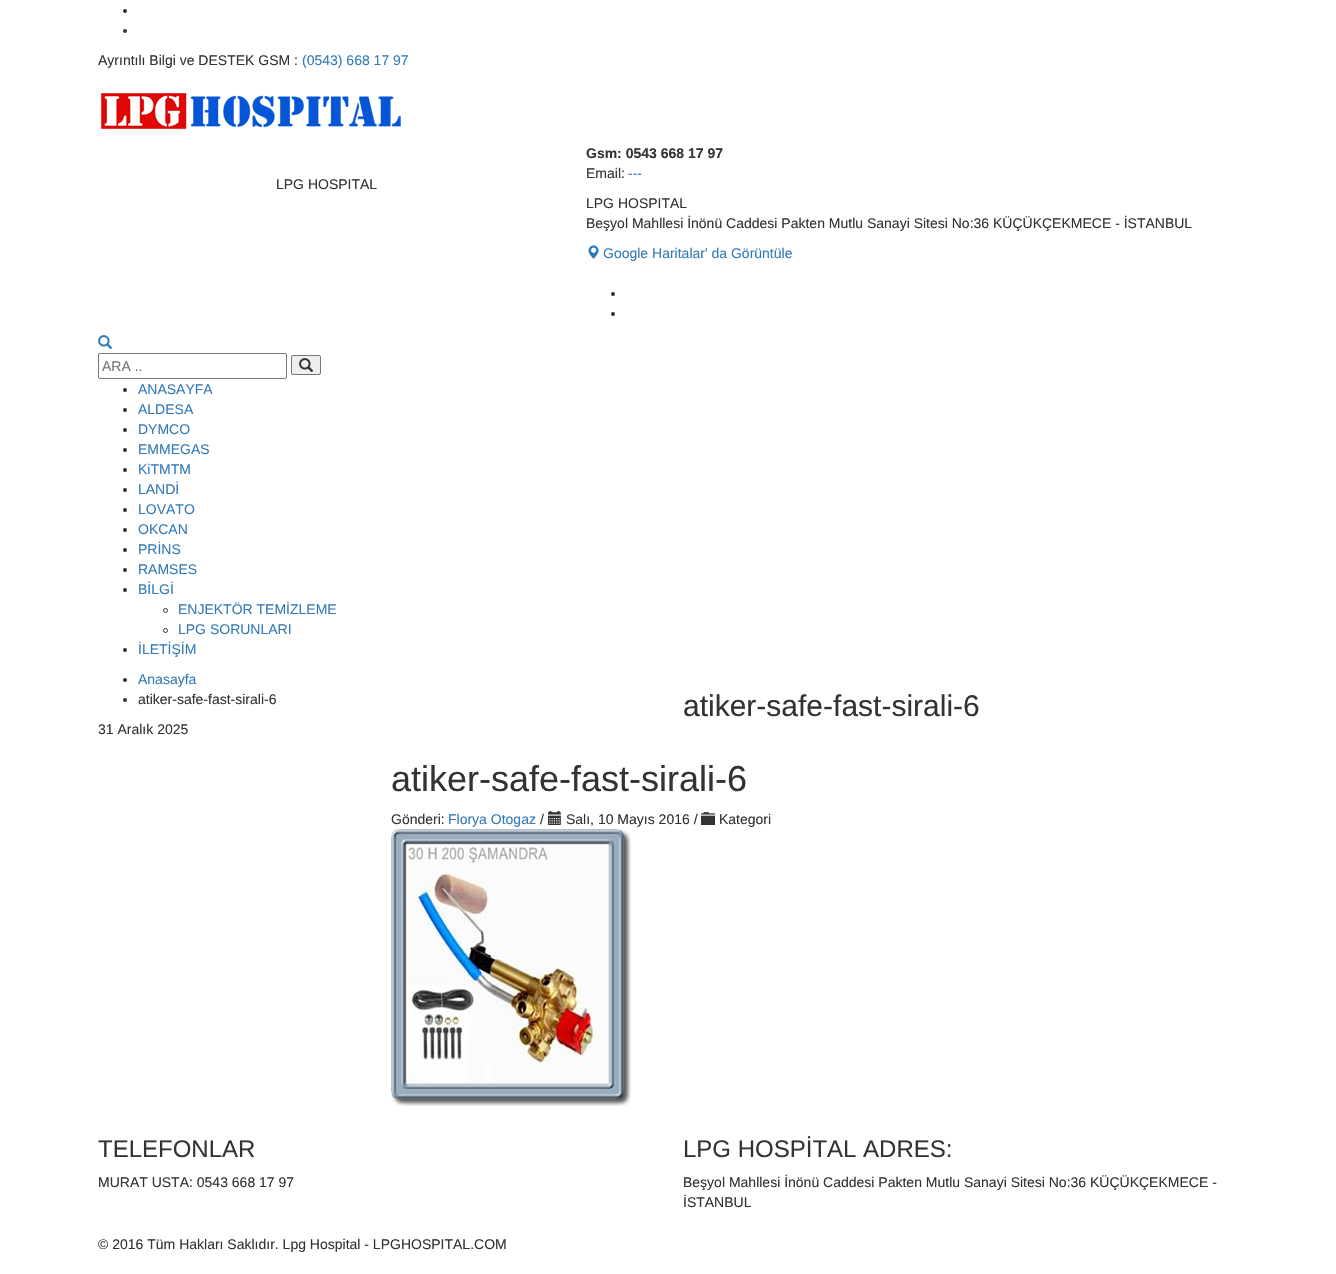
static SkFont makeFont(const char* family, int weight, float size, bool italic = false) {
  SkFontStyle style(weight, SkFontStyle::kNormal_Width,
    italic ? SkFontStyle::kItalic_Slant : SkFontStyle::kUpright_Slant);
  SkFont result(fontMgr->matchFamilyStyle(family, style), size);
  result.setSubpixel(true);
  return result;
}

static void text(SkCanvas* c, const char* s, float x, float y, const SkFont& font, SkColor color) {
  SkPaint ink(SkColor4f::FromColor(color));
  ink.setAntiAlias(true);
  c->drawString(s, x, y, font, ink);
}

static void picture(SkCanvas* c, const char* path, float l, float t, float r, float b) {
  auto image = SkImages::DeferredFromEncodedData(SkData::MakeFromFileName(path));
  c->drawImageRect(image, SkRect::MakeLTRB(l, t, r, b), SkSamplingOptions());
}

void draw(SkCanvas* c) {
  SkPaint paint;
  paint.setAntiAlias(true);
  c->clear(0xffffffff);
  paint.setColor(0xff333333);
  c->drawCircle(125, 11, 2, paint);
  c->drawCircle(125, 31, 2, paint);
  SkFont face1 = makeFont("Liberation Sans", 400, 14);
  text(c, "Ayrıntılı Bilgi ve DESTEK GSM :", 98, 65, face1, 0xff333333);
  text(c, "(0543) 668 17 97", 302, 65, face1, 0xff337ab7);
  picture(c, "img_01.png", 101, 93, 401, 129);
  text(c, "LPG HOSPITAL", 276, 189, face1, 0xff333333);
  SkFont face2 = makeFont("Liberation Sans", 700, 14);
  text(c, "Gsm: 0543 668 17 97", 586, 158, face2, 0xff333333);
  text(c, "Email:", 586, 178, face1, 0xff333333);
  text(c, "---", 628, 178, face1, 0xff337ab7);
  text(c, "LPG HOSPITAL", 586, 208, face1, 0xff333333);
  text(c, "Beşyol Mahllesi İnönü Caddesi Pakten Mutlu Sanayi Sitesi No:36 KÜÇÜKÇEKMECE - İSTANBUL", 586, 228, face1, 0xff333333);
  picture(c, "img_02.png", 588, 245, 599, 259);
  text(c, "Google Haritalar' da Görüntüle", 603, 258, face1, 0xff337ab7);
  c->drawCircle(613, 294, 2, paint);
  c->drawCircle(613, 314, 2, paint);
  picture(c, "img_03.png", 98, 335, 113, 349);
  paint.setStyle(SkPaint::kStroke_Style);
  paint.setStrokeWidth(1);
  paint.setColor(0xff767676);
  c->drawRoundRect(SkRect::MakeLTRB(98.5f, 353.5f, 286.5f, 378.5f), 1.5f, 1.5f, paint);
  text(c, "ARA ..", 102, 371, face1, 0xff757575);
  paint.setStyle(SkPaint::kFill_Style);
  paint.setColor(0xffefefef);
  c->drawRoundRect(SkRect::MakeLTRB(291.5f, 355.5f, 320.5f, 374.5f), 1.5f, 1.5f, paint);
  paint.setStyle(SkPaint::kStroke_Style);
  paint.setColor(0xff767676);
  c->drawRoundRect(SkRect::MakeLTRB(291.5f, 355.5f, 320.5f, 374.5f), 1.5f, 1.5f, paint);
  picture(c, "img_04.png", 299, 358, 314, 372);
  paint.setStyle(SkPaint::kFill_Style);
  paint.setColor(0xff333333);
  c->drawCircle(125, 390, 2, paint);
  text(c, "ANASAYFA", 138, 394, face1, 0xff337ab7);
  c->drawCircle(125, 410, 2, paint);
  text(c, "ALDESA", 138, 414, face1, 0xff337ab7);
  c->drawCircle(125, 430, 2, paint);
  text(c, "DYMCO", 138, 434, face1, 0xff337ab7);
  c->drawCircle(125, 450, 2, paint);
  text(c, "EMMEGAS", 138, 454, face1, 0xff337ab7);
  c->drawCircle(125, 470, 2, paint);
  text(c, "KiTMTM", 138, 474, face1, 0xff337ab7);
  c->drawCircle(125, 490, 2, paint);
  text(c, "LANDİ", 138, 494, face1, 0xff337ab7);
  c->drawCircle(125, 510, 2, paint);
  text(c, "LOVATO", 138, 514, face1, 0xff337ab7);
  c->drawCircle(125, 530, 2, paint);
  text(c, "OKCAN", 138, 534, face1, 0xff337ab7);
  c->drawCircle(125, 550, 2, paint);
  text(c, "PRİNS", 138, 554, face1, 0xff337ab7);
  c->drawCircle(125, 570, 2, paint);
  text(c, "RAMSES", 138, 574, face1, 0xff337ab7);
  c->drawCircle(125, 590, 2, paint);
  text(c, "BİLGİ", 138, 594, face1, 0xff337ab7);
  paint.setStyle(SkPaint::kStroke_Style);
  c->drawCircle(165.5f, 610.5f, 2, paint);
  text(c, "ENJEKTÖR TEMİZLEME", 178, 614, face1, 0xff337ab7);
  c->drawCircle(165.5f, 630.5f, 2, paint);
  text(c, "LPG SORUNLARI", 178, 634, face1, 0xff337ab7);
  paint.setStyle(SkPaint::kFill_Style);
  c->drawCircle(125, 650, 2, paint);
  text(c, "İLETİŞİM", 138, 654, face1, 0xff337ab7);
  c->drawCircle(125, 680, 2, paint);
  text(c, "Anasayfa", 138, 684, face1, 0xff337ab7);
  c->drawCircle(125, 700, 2, paint);
  text(c, "atiker-safe-fast-sirali-6", 138, 704, face1, 0xff333333);
  text(c, "31 Aralık 2025", 98, 734, face1, 0xff333333);
  SkFont face3 = makeFont("Liberation Sans", 400, 30);
  text(c, "atiker-safe-fast-sirali-6", 683, 716, face3, 0xff333333);
  SkFont face4 = makeFont("Liberation Sans", 400, 36);
  text(c, "atiker-safe-fast-sirali-6", 391, 791, face4, 0xff333333);
  text(c, "Gönderi:", 391, 824, face1, 0xff333333);
  text(c, "Florya Otogaz", 448, 824, face1, 0xff337ab7);
  text(c, "/", 540, 824, face1, 0xff333333);
  picture(c, "img_05.png", 548, 811, 561, 825);
  text(c, "Salı, 10 Mayıs 2016 /", 566, 824, face1, 0xff333333);
  picture(c, "img_06.png", 701, 812, 715, 825);
  text(c, "Kategori", 719, 824, face1, 0xff333333);
  picture(c, "img_07.png", 391, 829, 631, 1106);
  SkFont face5 = makeFont("Liberation Sans", 400, 24);
  text(c, "TELEFONLAR", 98, 1157, face5, 0xff333333);
  text(c, "MURAT USTA: 0543 668 17 97", 98, 1187, face1, 0xff333333);
  text(c, "LPG HOSPİTAL ADRES:", 683, 1157, face5, 0xff333333);
  text(c, "Beşyol Mahllesi İnönü Caddesi Pakten Mutlu Sanayi Sitesi No:36 KÜÇÜKÇEKMECE -", 683, 1187, face1, 0xff333333);
  text(c, "İSTANBUL", 683, 1207, face1, 0xff333333);
  text(c, "© 2016 Tüm Hakları Saklıdır. Lpg Hospital - LPGHOSPITAL.COM", 98, 1249, face1, 0xff333333);
}
